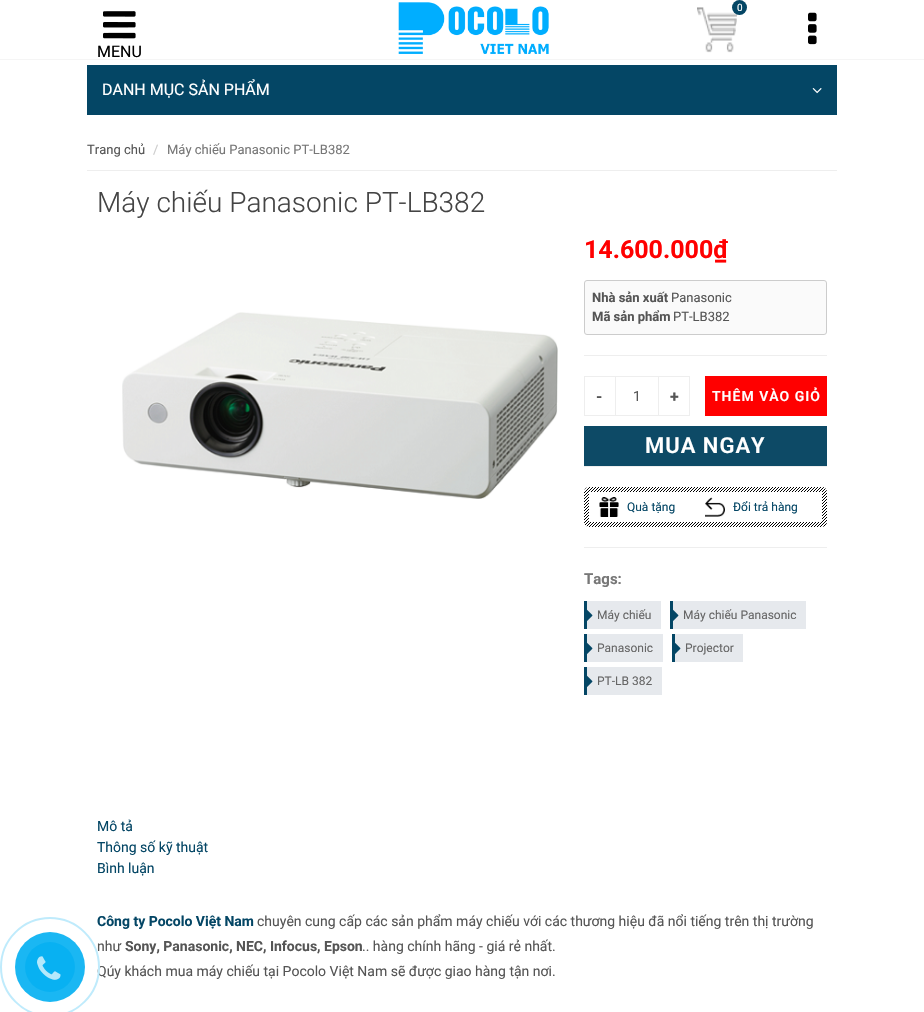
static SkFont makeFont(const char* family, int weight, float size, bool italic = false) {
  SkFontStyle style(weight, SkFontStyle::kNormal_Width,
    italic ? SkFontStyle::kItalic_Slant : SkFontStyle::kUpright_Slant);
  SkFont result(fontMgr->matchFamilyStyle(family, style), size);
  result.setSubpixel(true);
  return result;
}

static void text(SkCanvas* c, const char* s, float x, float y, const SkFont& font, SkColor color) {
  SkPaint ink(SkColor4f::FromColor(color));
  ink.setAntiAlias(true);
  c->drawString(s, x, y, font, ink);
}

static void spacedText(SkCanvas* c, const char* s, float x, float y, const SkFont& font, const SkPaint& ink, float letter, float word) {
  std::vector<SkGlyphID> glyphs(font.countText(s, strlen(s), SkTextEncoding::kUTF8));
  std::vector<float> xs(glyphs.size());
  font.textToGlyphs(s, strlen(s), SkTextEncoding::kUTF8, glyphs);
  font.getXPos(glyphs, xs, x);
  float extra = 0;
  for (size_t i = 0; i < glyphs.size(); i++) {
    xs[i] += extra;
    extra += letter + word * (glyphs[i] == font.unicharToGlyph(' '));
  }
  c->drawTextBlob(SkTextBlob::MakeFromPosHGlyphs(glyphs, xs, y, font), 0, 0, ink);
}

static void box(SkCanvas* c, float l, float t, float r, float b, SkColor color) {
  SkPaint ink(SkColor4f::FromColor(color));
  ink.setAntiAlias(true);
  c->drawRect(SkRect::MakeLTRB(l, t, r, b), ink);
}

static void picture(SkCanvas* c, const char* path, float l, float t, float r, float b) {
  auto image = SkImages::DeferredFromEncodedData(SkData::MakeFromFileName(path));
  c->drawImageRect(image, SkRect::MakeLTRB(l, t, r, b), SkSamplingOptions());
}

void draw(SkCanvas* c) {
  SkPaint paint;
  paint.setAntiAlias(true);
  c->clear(0xffffffff);
  SkFont face1 = makeFont("Roboto", 700, 14);
  text(c, "Công ty Pocolo Việt Nam", 97, 926, face1, 0xff044665);
  SkFont face2 = makeFont("Roboto", 400, 14);
  text(c, "như", 97, 951, face2, 0xff555555);
  text(c, "Qúy khách mua máy chiếu tại Pocolo Việt Nam sẽ được giao hàng tận nơi.", 97, 976, face2, 0xff555555);
  paint.setStyle(SkPaint::kStroke_Style);
  paint.setStrokeWidth(2);
  paint.setColor(0xffbfebfc);
  c->drawCircle(50, 967, 49, paint);
  paint.setStyle(SkPaint::kFill_Style);
  paint.setColor(0xff1ab7f3);
  c->drawCircle(50, 967, 35, paint);
  paint.setColor(0xff08b1f2);
  c->drawCircle(50, 967, 25, paint);
  picture(c, "img_01.png", 37, 956, 61, 980);
  box(c, 0, 59, 924, 60, 0xfff5f5f5);
  picture(c, "img_02.png", 398, 2, 549, 54);
  picture(c, "img_03.png", 697, 7, 737, 53);
  paint.setColor(0xff044665);
  c->drawCircle(739.5f, 7.5f, 7.5f, paint);
  SkFont face3 = makeFont("Roboto", 400, 10);
  text(c, "0", 737, 11, face3, 0xffffffff);
  picture(c, "img_04.png", 808, 12, 817, 45);
  picture(c, "img_05.png", 103, 11, 136, 39);
  SkFont face4 = makeFont("Roboto", 400, 16);
  text(c, "MENU", 97, 57, face4, 0xff000000);
  box(c, 87, 65, 837, 115, 0xff044665);
  text(c, "DANH MỤC SẢN PHẨM", 102, 95, face4, 0xffffffff);
  picture(c, "img_06.png", 812, 88, 822, 94);
  box(c, 87, 170, 837, 171, 0xffeeeeee);
  SkFont face5 = makeFont("Roboto", 400, 13);
  text(c, "Trang chủ", 87, 154, face5, 0xff555555);
  text(c, "/", 153, 154, face5, 0xffcccccc);
  text(c, "Máy chiếu Panasonic PT-LB382", 167, 154, face5, 0xff777777);
  SkFont face6 = makeFont("Roboto", 300, 28);
  text(c, "Máy chiếu Panasonic PT-LB382", 97, 212, face6, 0xff444444);
  picture(c, "img_07.png", 122, 312, 558, 499);
  SkFont face7 = makeFont("Roboto", 700, 25);
  text(c, "14.600.000₫", 584, 258, face7, 0xffff0000);
  paint.setColor(0xfffafafa);
  c->drawRoundRect(SkRect::MakeLTRB(584.5f, 280.5f, 826.5f, 334.5f), 2.5f, 2.5f, paint);
  paint.setStyle(SkPaint::kStroke_Style);
  paint.setStrokeWidth(1);
  paint.setColor(0xffcccccc);
  c->drawRoundRect(SkRect::MakeLTRB(584.5f, 280.5f, 826.5f, 334.5f), 2.5f, 2.5f, paint);
  SkFont face8 = makeFont("Roboto", 700, 13);
  text(c, "Nhà sản xuất", 592, 302, face8, 0xff555555);
  text(c, "Panasonic", 671, 302, face5, 0xff555555);
  text(c, "Mã sản phẩm", 592, 321, face8, 0xff555555);
  text(c, "PT-LB382", 673, 321, face5, 0xff555555);
  box(c, 584, 355, 827, 356, 0xffeeeeee);
  paint.setColor(0xffeeeeee);
  c->drawRect(SkRect::MakeLTRB(584.5f, 376.5f, 615.5f, 415.5f), paint);
  SkFont face9 = makeFont("Roboto", 700, 16);
  text(c, "-", 596, 402, face9, 0xff555555);
  box(c, 616, 376, 658, 377, 0xffeeeeee);
  box(c, 616, 415, 658, 416, 0xffeeeeee);
  text(c, "1", 633, 401, face2, 0xff555555);
  c->drawRect(SkRect::MakeLTRB(658.5f, 376.5f, 689.5f, 415.5f), paint);
  text(c, "+", 670, 402, face9, 0xff555555);
  box(c, 705, 376, 827, 416, 0xffff0000);
  SkFont face10 = makeFont("Roboto", 600, 14);
  paint.setStyle(SkPaint::kFill_Style);
  paint.setColor(0xffffffff);
  spacedText(c, "THÊM VÀO GIỎ", 712, 401, face10, paint, 1, 0);
  box(c, 584, 426, 827, 466, 0xff0d4a66);
  SkFont face11 = makeFont("Roboto", 600, 22);
  spacedText(c, "MUA NGAY", 645, 453, face11, paint, 1, 0);
  box(c, 584, 466, 827, 467, 0xffeeeeee);
  picture(c, "img_08.png", 584, 487, 827, 527);
  box(c, 589, 492, 822, 522, 0xffffffff);
  picture(c, "img_09.png", 599, 497, 619, 517);
  SkFont face12 = makeFont("Roboto", 400, 12);
  text(c, "Quà tặng", 627, 511, face12, 0xff044665);
  picture(c, "img_10.png", 705, 497, 725, 517);
  text(c, "Đổi trả hàng", 733, 511, face12, 0xff044665);
  box(c, 584, 547, 827, 548, 0xffeeeeee);
  SkFont face13 = makeFont("Roboto", 700, 15);
  text(c, "Tags:", 584, 584, face13, 0xff777777);
  box(c, 587, 601, 661, 629, 0xffe6e9ed);
  box(c, 584, 601, 587, 629, 0xff044665);
  picture(c, "img_11.png", 587, 609, 593, 621);
  text(c, "Máy chiếu", 597, 619, face12, 0xff666666);
  box(c, 673, 601, 806, 629, 0xffe6e9ed);
  box(c, 670, 601, 673, 629, 0xff044665);
  picture(c, "img_11.png", 673, 609, 679, 621);
  text(c, "Máy chiếu Panasonic", 683, 619, face12, 0xff666666);
  box(c, 587, 634, 663, 662, 0xffe6e9ed);
  box(c, 584, 634, 587, 662, 0xff044665);
  picture(c, "img_11.png", 587, 642, 593, 654);
  text(c, "Panasonic", 597, 652, face12, 0xff666666);
  box(c, 675, 634, 743, 662, 0xffe6e9ed);
  box(c, 672, 634, 675, 662, 0xff044665);
  picture(c, "img_11.png", 675, 642, 681, 654);
  text(c, "Projector", 685, 652, face12, 0xff666666);
  box(c, 587, 667, 662, 695, 0xffe6e9ed);
  box(c, 584, 667, 587, 695, 0xff044665);
  picture(c, "img_11.png", 587, 675, 593, 687);
  text(c, "PT-LB 382", 597, 685, face12, 0xff666666);
  text(c, "Mô tả", 97, 831, face2, 0xff044665);
  text(c, "Thông số kỹ thuật", 97, 852, face2, 0xff044665);
  text(c, "Bình luận", 97, 873, face2, 0xff044665);
  text(c, "chuyên cung cấp các sản phẩm máy chiếu với các thương hiệu đã nổi tiếng trên thị trường", 257, 926, face2, 0xff555555);
  text(c, "Sony, Panasonic, NEC, Infocus, Epson", 125, 951, face1, 0xff555555);
  text(c, ".. hàng chính hãng - giá rẻ nhất.", 362, 951, face2, 0xff555555);
}
